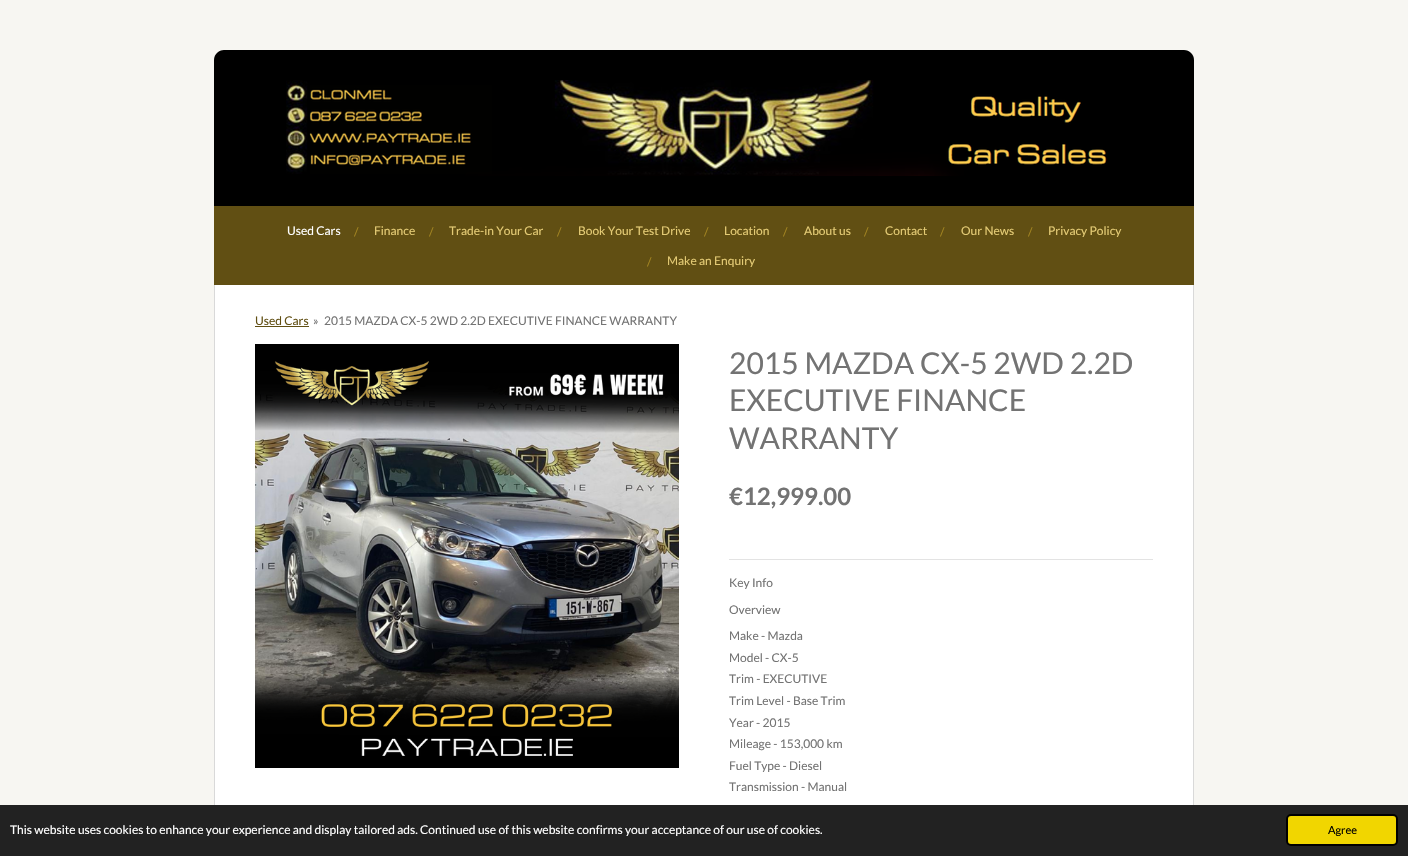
static SkFont makeFont(const char* family, int weight, float size, bool italic = false) {
  SkFontStyle style(weight, SkFontStyle::kNormal_Width,
    italic ? SkFontStyle::kItalic_Slant : SkFontStyle::kUpright_Slant);
  SkFont result(fontMgr->matchFamilyStyle(family, style), size);
  result.setSubpixel(true);
  return result;
}

static void text(SkCanvas* c, const char* s, float x, float y, const SkFont& font, SkColor color) {
  SkPaint ink(SkColor4f::FromColor(color));
  ink.setAntiAlias(true);
  c->drawString(s, x, y, font, ink);
}

static void box(SkCanvas* c, float l, float t, float r, float b, SkColor color) {
  SkPaint ink(SkColor4f::FromColor(color));
  ink.setAntiAlias(true);
  c->drawRect(SkRect::MakeLTRB(l, t, r, b), ink);
}

static void picture(SkCanvas* c, const char* path, float l, float t, float r, float b) {
  auto image = SkImages::DeferredFromEncodedData(SkData::MakeFromFileName(path));
  c->drawImageRect(image, SkRect::MakeLTRB(l, t, r, b), SkSamplingOptions());
}

void draw(SkCanvas* c) {
  SkPaint paint;
  paint.setAntiAlias(true);
  c->clear(0xfff7f6f2);
  paint.setColor(0xff000000);
  c->drawPath(SkPathBuilder().moveTo(224, 50).lineTo(1184, 50).cubicTo(1189.5f, 50, 1194, 54.5f, 1194, 60).lineTo(1194, 206).lineTo(214, 206).lineTo(214, 60).cubicTo(214, 54.5f, 218.5f, 50, 224, 50).close().detach(), paint);
  picture(c, "img_01.png", 286, 80, 1107, 176);
  box(c, 214, 206, 1194, 285, 0xff614f13);
  SkFont face1 = makeFont("Lato", 400, 12);
  text(c, "Used Cars", 287, 235, face1, 0xffffffff);
  text(c, "/", 354, 236, face1, 0xffa18320);
  text(c, "Finance", 374, 235, face1, 0xffe4cb75);
  text(c, "/", 429, 236, face1, 0xffa18320);
  text(c, "Trade-in Your Car", 449, 235, face1, 0xffe4cb75);
  text(c, "/", 557, 236, face1, 0xffa18320);
  text(c, "Book Your Test Drive", 578, 235, face1, 0xffe4cb75);
  text(c, "/", 704, 236, face1, 0xffa18320);
  text(c, "Location", 724, 235, face1, 0xffe4cb75);
  text(c, "/", 783, 236, face1, 0xffa18320);
  text(c, "About us", 804, 235, face1, 0xffe4cb75);
  text(c, "/", 864, 236, face1, 0xffa18320);
  text(c, "Contact", 885, 235, face1, 0xffe4cb75);
  text(c, "/", 940, 236, face1, 0xffa18320);
  text(c, "Our News", 961, 235, face1, 0xffe4cb75);
  text(c, "/", 1028, 236, face1, 0xffa18320);
  text(c, "Privacy Policy", 1048, 235, face1, 0xffe4cb75);
  text(c, "/", 647, 266, face1, 0xffa18320);
  text(c, "Make an Enquiry", 667, 265, face1, 0xffe4cb75);
  box(c, 215, 285, 1193, 805, 0xffffffff);
  box(c, 1193, 285, 1194, 805, 0xffd9d9d9);
  box(c, 214, 285, 215, 805, 0xffd9d9d9);
  text(c, "Used Cars", 255, 325, face1, 0xff614f13);
  box(c, 255, 326, 309, 327, 0xff614f13);
  text(c, "»", 313, 325, face1, 0xff737373);
  text(c, "2015 MAZDA CX-5 2WD 2.2D EXECUTIVE FINANCE WARRANTY", 324, 325, face1, 0xff737373);
  picture(c, "img_02.png", 255, 344, 679, 768);
  SkFont face2 = makeFont("Lato", 400, 30);
  text(c, "2015 MAZDA CX-5 2WD 2.2D", 729, 374, face2, 0xff737373);
  text(c, "EXECUTIVE FINANCE", 729, 411, face2, 0xff737373);
  text(c, "WARRANTY", 729, 449, face2, 0xff737373);
  SkFont face3 = makeFont("Lato", 700, 24);
  text(c, "€12,999.00", 729, 505, face3, 0xff737373);
  box(c, 729, 559, 1153, 560, 0xffe3e3e3);
  text(c, "Key Info", 729, 587, face1, 0xff737373);
  text(c, "Overview", 729, 614, face1, 0xff737373);
  text(c, "Make - Mazda", 729, 640, face1, 0xff737373);
  text(c, "Model - CX-5", 729, 662, face1, 0xff737373);
  text(c, "Trim - EXECUTIVE", 729, 683, face1, 0xff737373);
  text(c, "Trim Level - Base Trim", 729, 705, face1, 0xff737373);
  text(c, "Year - 2015", 729, 727, face1, 0xff737373);
  text(c, "Mileage - 153,000 km", 729, 748, face1, 0xff737373);
  text(c, "Fuel Type - Diesel", 729, 770, face1, 0xff737373);
  text(c, "Transmission - Manual", 729, 791, face1, 0xff737373);
  box(c, 0, 805, 1408, 856, 0xff222222);
  text(c, "This website uses cookies to enhance your experience and display tailored ads. Continued use of this website confirms your acceptance of our use of cookies.", 10, 834, face1, 0xffffffff);
  paint.setColor(0xfff1d600);
  c->drawRoundRect(SkRect::MakeLTRB(1287, 815, 1397, 845), 4, 4, paint);
  paint.setStyle(SkPaint::kStroke_Style);
  paint.setStrokeWidth(2);
  paint.setColor(0xff000000);
  c->drawRoundRect(SkRect::MakeLTRB(1287, 815, 1397, 845), 4, 4, paint);
  SkFont face4 = makeFont("Lato", 400, 11);
  text(c, "Agree", 1328, 834, face4, 0xff000000);
}
